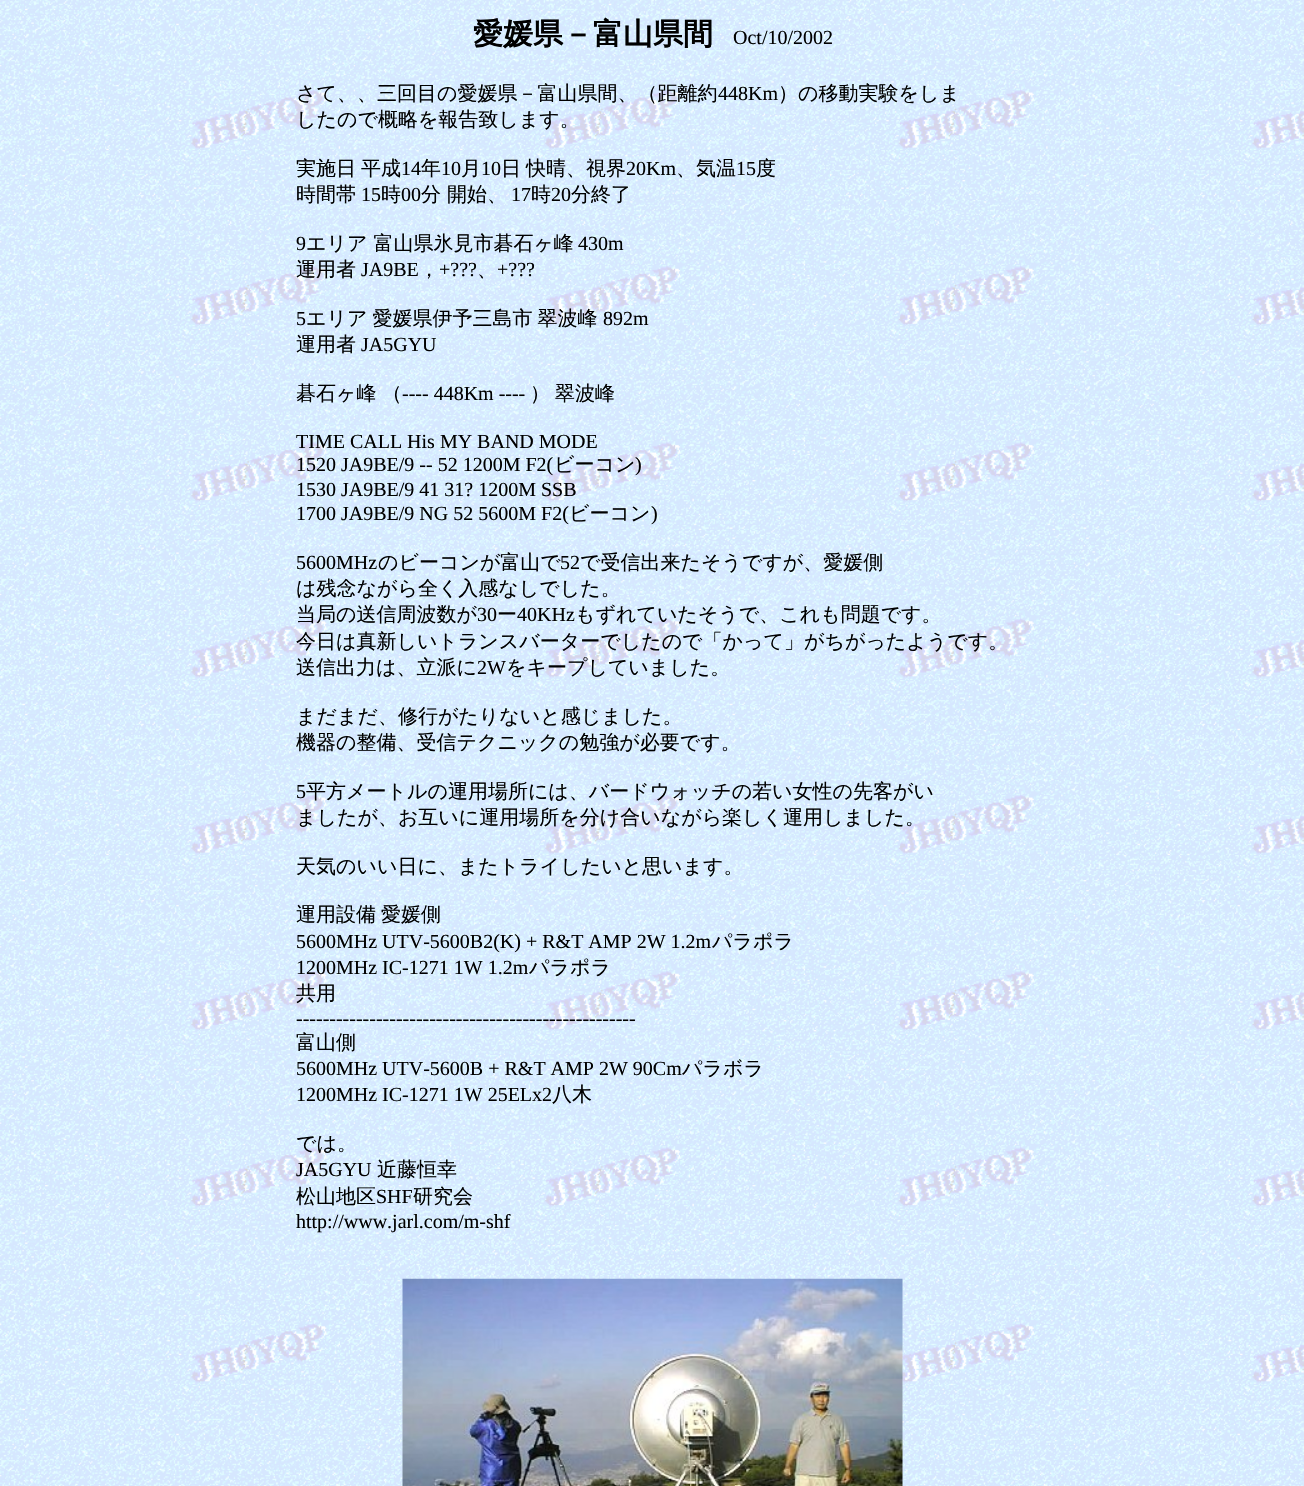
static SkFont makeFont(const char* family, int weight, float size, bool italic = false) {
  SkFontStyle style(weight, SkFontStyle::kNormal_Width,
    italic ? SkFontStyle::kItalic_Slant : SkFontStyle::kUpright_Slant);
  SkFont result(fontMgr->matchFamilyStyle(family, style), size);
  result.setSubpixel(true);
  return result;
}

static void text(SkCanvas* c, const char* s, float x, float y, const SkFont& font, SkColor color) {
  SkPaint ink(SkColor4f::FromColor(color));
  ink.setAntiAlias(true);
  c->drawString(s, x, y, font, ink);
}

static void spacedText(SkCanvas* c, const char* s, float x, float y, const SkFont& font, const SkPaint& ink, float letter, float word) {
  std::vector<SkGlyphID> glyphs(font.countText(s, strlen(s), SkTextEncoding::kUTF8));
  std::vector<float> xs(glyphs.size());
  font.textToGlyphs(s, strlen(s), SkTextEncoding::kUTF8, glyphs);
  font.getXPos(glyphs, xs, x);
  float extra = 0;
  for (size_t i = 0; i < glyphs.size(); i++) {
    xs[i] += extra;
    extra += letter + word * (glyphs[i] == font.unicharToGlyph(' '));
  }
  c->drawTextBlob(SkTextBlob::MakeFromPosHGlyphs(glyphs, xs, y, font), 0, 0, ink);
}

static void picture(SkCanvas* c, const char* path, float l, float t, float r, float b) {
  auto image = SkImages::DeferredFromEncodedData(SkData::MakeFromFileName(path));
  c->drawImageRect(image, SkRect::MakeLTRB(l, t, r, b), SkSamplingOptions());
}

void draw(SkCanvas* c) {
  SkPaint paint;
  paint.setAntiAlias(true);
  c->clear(0xffffffff);
  picture(c, "img_01.png", 0, 0, 1304, 1486);
  SkFont face1 = makeFont("WenQuanYi Zen Hei", 700, 30);
  text(c, "愛媛県－富山県間", 473, 44, face1, 0xff000000);
  SkFont face2 = makeFont("Liberation Serif", 400, 20);
  text(c, "Oct/10/2002", 733, 44, face2, 0xff000000);
  SkFont face3 = makeFont("WenQuanYi Zen Hei", 500, 20);
  text(c, "さて、、三回目の愛媛県－富山県間、（距離約", 296, 100, face3, 0xff000000);
  text(c, "448Km", 718, 100, face2, 0xff000000);
  text(c, "）の移動実験をしま", 778, 100, face3, 0xff000000);
  text(c, "したので概略を報告致します。", 296, 126, face3, 0xff000000);
  paint.setColor(0xff000000);
  spacedText(c, "実施日 平成", 296, 175, face3, paint, 0, -1);
  text(c, "14", 401, 175, face2, 0xff000000);
  text(c, "年", 421, 175, face3, 0xff000000);
  text(c, "10", 441, 175, face2, 0xff000000);
  text(c, "月", 461, 175, face3, 0xff000000);
  text(c, "10", 481, 175, face2, 0xff000000);
  text(c, "日", 501, 175, face3, 0xff000000);
  text(c, "快晴、視界", 526, 175, face3, 0xff000000);
  text(c, "20Km", 626, 175, face2, 0xff000000);
  text(c, "、気温", 676, 175, face3, 0xff000000);
  text(c, "15", 736, 175, face2, 0xff000000);
  text(c, "度", 756, 175, face3, 0xff000000);
  text(c, "時間帯", 296, 201, face3, 0xff000000);
  text(c, "15", 361, 201, face2, 0xff000000);
  text(c, "時", 381, 201, face3, 0xff000000);
  text(c, "00", 401, 201, face2, 0xff000000);
  text(c, "分 開始、", 421, 201, face3, 0xff000000);
  text(c, "17", 511, 201, face2, 0xff000000);
  text(c, "時", 531, 201, face3, 0xff000000);
  text(c, "20", 551, 201, face2, 0xff000000);
  text(c, "分終了", 571, 201, face3, 0xff000000);
  text(c, "9", 296, 250, face2, 0xff000000);
  text(c, "エリア 富山県氷見市碁石ヶ峰", 306, 250, face3, 0xff000000);
  text(c, "430m", 578, 250, face2, 0xff000000);
  text(c, "運用者", 296, 276, face3, 0xff000000);
  text(c, "JA9BE", 361, 276, face2, 0xff000000);
  text(c, "，", 419, 276, face3, 0xff000000);
  text(c, "+?\077?", 439, 276, face2, 0xff000000);
  text(c, "、", 477, 276, face3, 0xff000000);
  text(c, "+?\077?", 497, 276, face2, 0xff000000);
  text(c, "5", 296, 325, face2, 0xff000000);
  spacedText(c, "エリア 愛媛県伊予三島市 翠波峰", 306, 325, face3, paint, 0, -1);
  text(c, "892m", 603, 325, face2, 0xff000000);
  text(c, "運用者", 296, 351, face3, 0xff000000);
  text(c, "JA5GYU", 361, 351, face2, 0xff000000);
  text(c, "碁石ヶ峰", 296, 400, face3, 0xff000000);
  text(c, "（", 382, 400, face3, 0xff000000);
  text(c, "---- 448Km ----", 402, 400, face2, 0xff000000);
  text(c, "）", 530, 400, face3, 0xff000000);
  text(c, "翠波峰", 555, 400, face3, 0xff000000);
  text(c, "TIME CALL His MY BAND MODE", 296, 448, face2, 0xff000000);
  text(c, "1520 JA9BE/9 -- 52 1200M F2(", 296, 471, face2, 0xff000000);
  text(c, "ビーコン", 554, 471, face3, 0xff000000);
  text(c, ")", 635, 471, face2, 0xff000000);
  text(c, "1530 JA9BE/9 41 31? 1200M SSB", 296, 496, face2, 0xff000000);
  text(c, "1700 JA9BE/9 NG 52 5600M F2(", 296, 520, face2, 0xff000000);
  text(c, "ビーコン", 569, 520, face3, 0xff000000);
  text(c, ")", 651, 520, face2, 0xff000000);
  text(c, "5600MHz", 296, 569, face2, 0xff000000);
  text(c, "のビーコンが富山で", 378, 569, face3, 0xff000000);
  text(c, "52", 560, 569, face2, 0xff000000);
  text(c, "で受信出来たそうですが、愛媛側", 580, 569, face3, 0xff000000);
  text(c, "は残念ながら全く入感なしでした。", 296, 595, face3, 0xff000000);
  text(c, "当局の送信周波数が", 296, 621, face3, 0xff000000);
  text(c, "30", 477, 621, face2, 0xff000000);
  text(c, "ー", 497, 621, face3, 0xff000000);
  text(c, "40KHz", 517, 621, face2, 0xff000000);
  text(c, "もずれていたそうで、これも問題です。", 575, 621, face3, 0xff000000);
  text(c, "今日は真新しいトランスバーターでしたので「かって」がちがったようです。", 296, 648, face3, 0xff000000);
  text(c, "送信出力は、立派に", 296, 674, face3, 0xff000000);
  text(c, "2W", 477, 674, face2, 0xff000000);
  text(c, "をキープしていました。", 506, 674, face3, 0xff000000);
  text(c, "まだまだ、修行がたりないと感じました。", 296, 723, face3, 0xff000000);
  text(c, "機器の整備、受信テクニックの勉強が必要です。", 296, 749, face3, 0xff000000);
  text(c, "5", 296, 798, face2, 0xff000000);
  text(c, "平方メートルの運用場所には、バードウォッチの若い女性の先客がい", 306, 798, face3, 0xff000000);
  text(c, "ましたが、お互いに運用場所を分け合いながら楽しく運用しました。", 296, 824, face3, 0xff000000);
  text(c, "天気のいい日に、またトライしたいと思います。", 296, 873, face3, 0xff000000);
  text(c, "運用設備", 296, 921, face3, 0xff000000);
  text(c, "愛媛側", 381, 921, face3, 0xff000000);
  text(c, "5600MHz UTV-5600B2(K) + R&T AMP 2W 1.2m", 296, 948, face2, 0xff000000);
  text(c, "パラポラ", 712, 948, face3, 0xff000000);
  text(c, "1200MHz IC-1271 1W 1.2m", 296, 974, face2, 0xff000000);
  text(c, "パラポラ", 529, 974, face3, 0xff000000);
  text(c, "共用", 296, 1000, face3, 0xff000000);
  text(c, "---------------------------------------------------", 296, 1025, face2, 0xff000000);
  text(c, "富山側", 296, 1049, face3, 0xff000000);
  text(c, "5600MHz UTV-5600B + R&T AMP 2W 90Cm", 296, 1075, face2, 0xff000000);
  text(c, "パラボラ", 682, 1075, face3, 0xff000000);
  text(c, "1200MHz IC-1271 1W 25ELx2", 296, 1101, face2, 0xff000000);
  text(c, "八木", 552, 1101, face3, 0xff000000);
  text(c, "では。", 296, 1150, face3, 0xff000000);
  text(c, "JA5GYU", 296, 1176, face2, 0xff000000);
  text(c, "近藤恒幸", 377, 1176, face3, 0xff000000);
  text(c, "松山地区", 296, 1203, face3, 0xff000000);
  text(c, "SHF", 376, 1203, face2, 0xff000000);
  text(c, "研究会", 413, 1203, face3, 0xff000000);
  text(c, "http://www.jarl.com/m-shf", 296, 1228, face2, 0xff000000);
  picture(c, "img_02.png", 402, 1278, 903, 1486);
}
